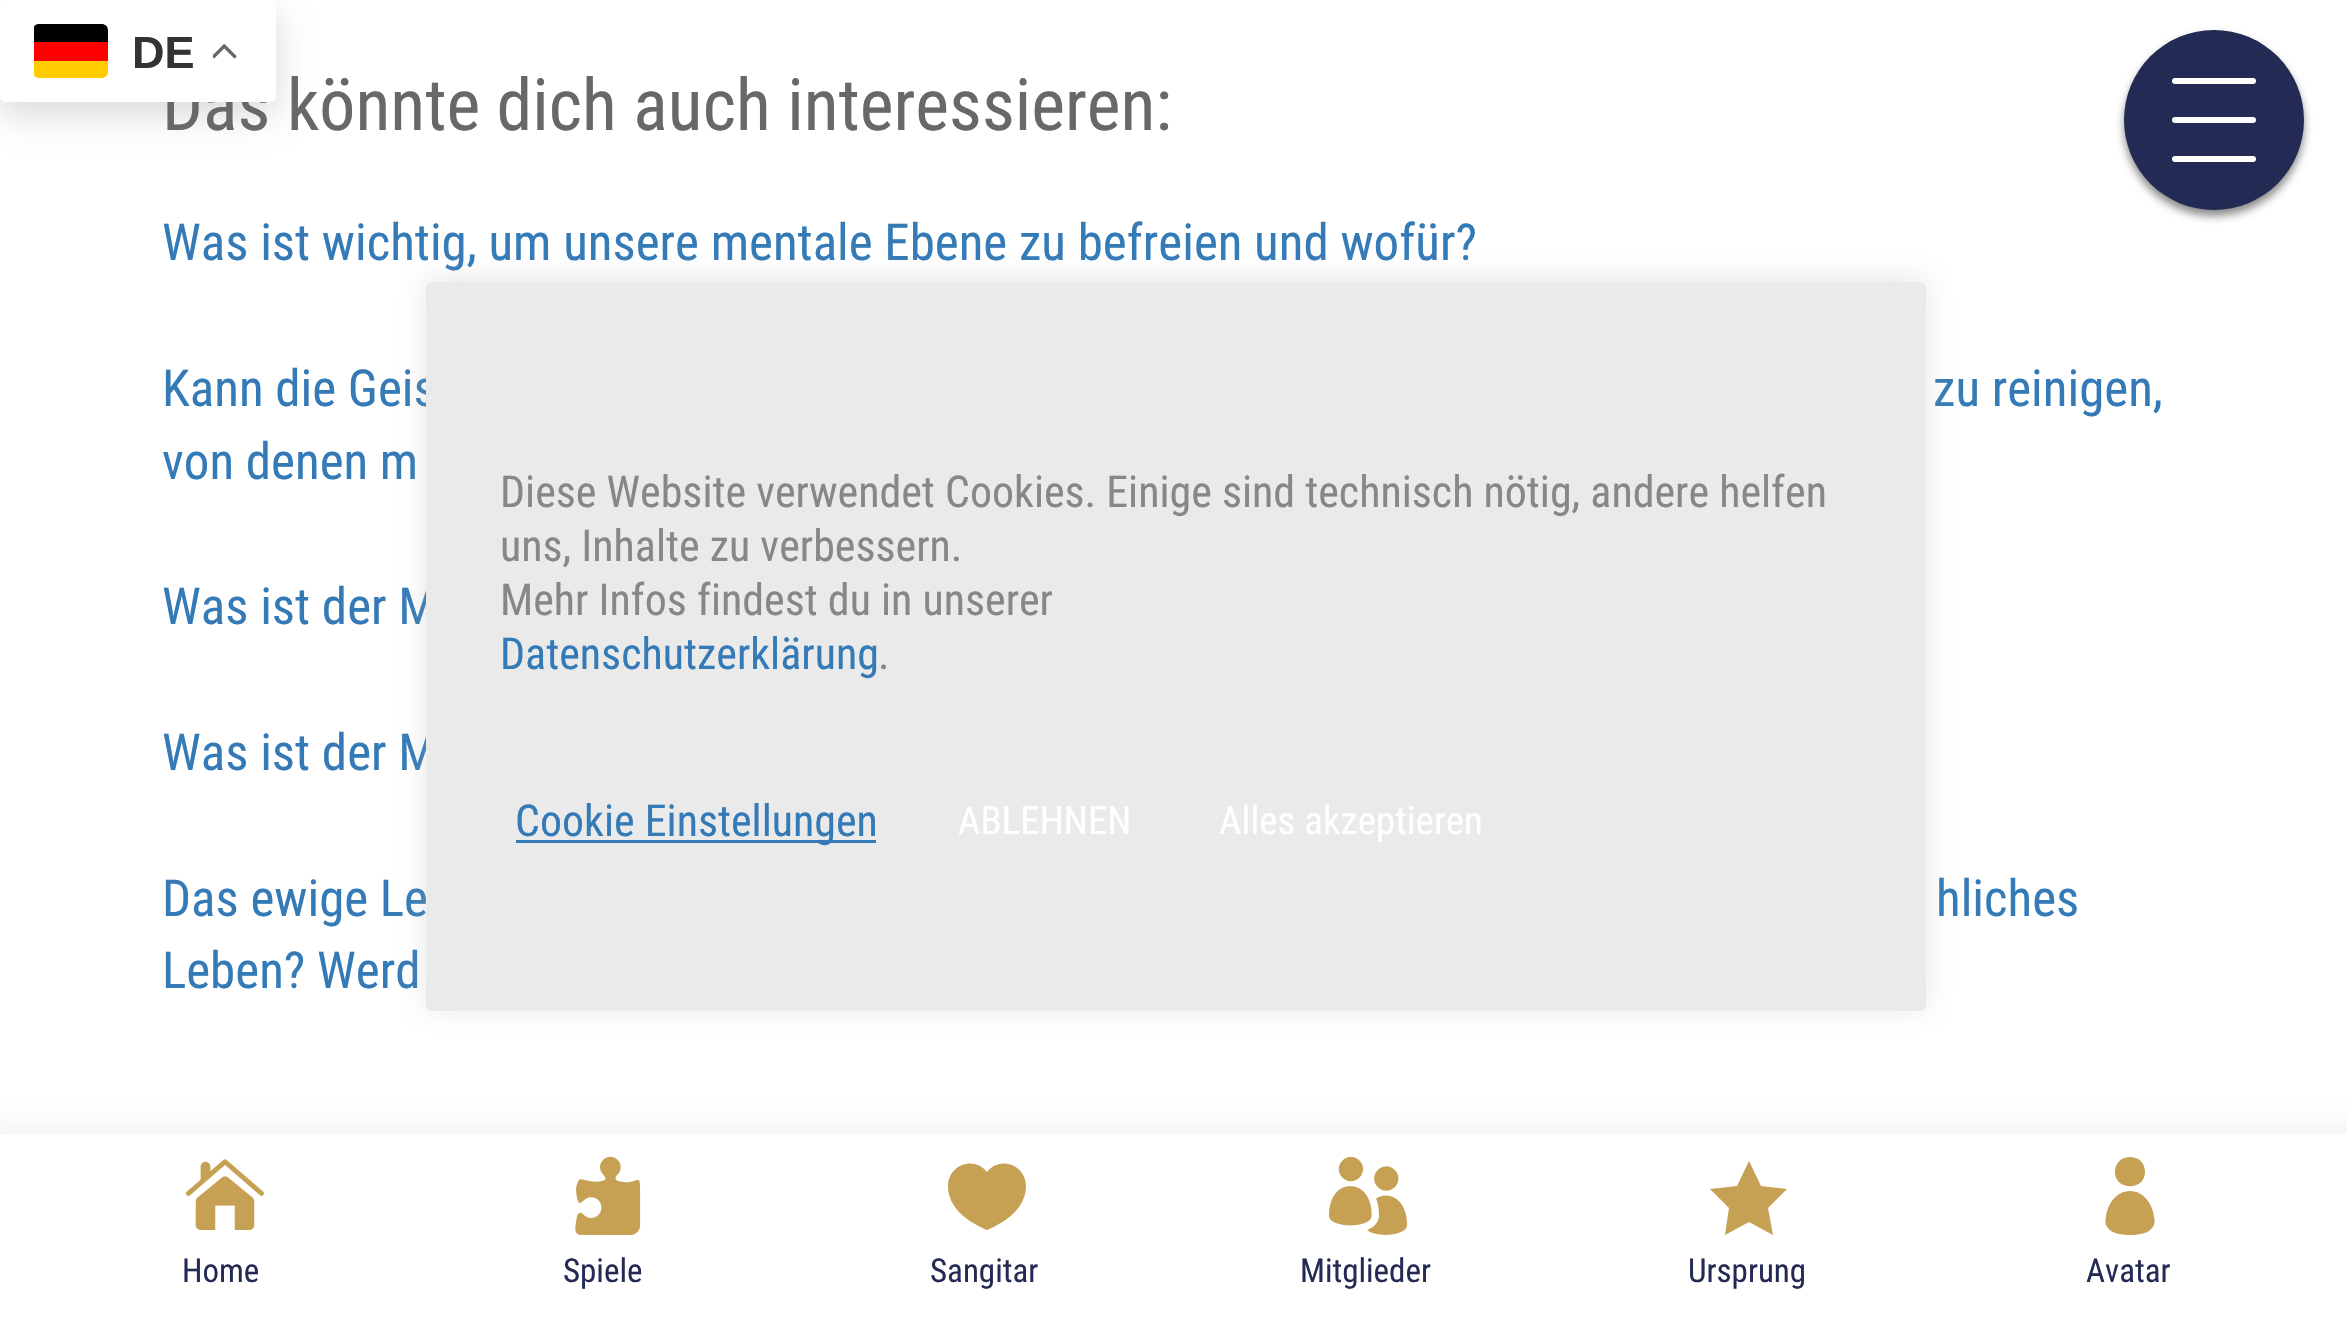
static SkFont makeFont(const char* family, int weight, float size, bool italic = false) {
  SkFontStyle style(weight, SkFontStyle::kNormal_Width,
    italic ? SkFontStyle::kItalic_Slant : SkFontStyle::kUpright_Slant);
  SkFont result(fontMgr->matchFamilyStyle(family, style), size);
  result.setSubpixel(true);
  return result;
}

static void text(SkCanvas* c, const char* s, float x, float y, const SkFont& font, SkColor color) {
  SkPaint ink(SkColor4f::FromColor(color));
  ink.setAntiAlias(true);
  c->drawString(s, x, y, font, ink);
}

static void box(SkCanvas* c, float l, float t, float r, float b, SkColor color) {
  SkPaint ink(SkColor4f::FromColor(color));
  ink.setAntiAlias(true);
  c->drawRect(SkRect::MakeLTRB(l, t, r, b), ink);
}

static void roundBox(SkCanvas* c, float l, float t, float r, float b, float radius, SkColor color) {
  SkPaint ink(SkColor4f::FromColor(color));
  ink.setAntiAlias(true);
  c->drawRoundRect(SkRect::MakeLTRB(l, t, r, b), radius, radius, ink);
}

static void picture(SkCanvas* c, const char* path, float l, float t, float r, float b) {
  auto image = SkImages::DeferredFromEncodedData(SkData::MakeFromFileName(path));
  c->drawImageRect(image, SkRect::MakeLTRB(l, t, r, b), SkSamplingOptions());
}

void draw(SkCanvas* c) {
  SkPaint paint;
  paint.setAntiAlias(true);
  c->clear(0xffffffff);
  paint.setColor(0x26000000);
  paint.setMaskFilter(SkMaskFilter::MakeBlur(kNormal_SkBlurStyle, 17));
  c->drawRoundRect(SkRect::MakeLTRB(0, 12, 276, 114), 5, 5, paint);
  paint.setMaskFilter(nullptr);
  SkFont face1 = makeFont("Roboto Condensed", 400, 72);
  text(c, "Das könnte dich auch interessieren:", 162, 130, face1, 0xff686868);
  roundBox(c, 0, 0, 276, 102, 5, 0xffffffff);
  c->save();
  c->clipPath(SkPathBuilder().moveTo(39, 24).lineTo(102, 24).cubicTo(105.5f, 24, 108, 26.5f, 108, 30).lineTo(108, 72).cubicTo(108, 75.5f, 105.5f, 78, 102, 78).lineTo(39, 78).cubicTo(35.5f, 78, 33, 75.5f, 33, 72).lineTo(33, 30).cubicTo(33, 26.5f, 35.5f, 24, 39, 24).close().detach(), true);
  paint.setColor(0xffffcc00);
  c->drawPath(SkPathBuilder().moveTo(34, 61).lineTo(108, 61).lineTo(108, 72).cubicTo(108, 75.5f, 105.5f, 78, 102, 78).lineTo(34, 78).close().detach(), paint);
  paint.setColor(0xff000000);
  c->drawPath(SkPathBuilder().moveTo(34, 24).lineTo(102, 24).cubicTo(105.5f, 24, 108, 26.5f, 108, 30).lineTo(108, 42).lineTo(34, 42).close().detach(), paint);
  c->restore();
  box(c, 34, 42, 108, 61, 0xffff0000);
  SkFont face2 = makeFont("Liberation Sans", 700, 45);
  text(c, "DE", 132, 68, face2, 0xff333333);
  picture(c, "img_01.png", 213, 44, 237, 59);
  paint.setColor(0x75000000);
  paint.setMaskFilter(SkMaskFilter::MakeBlur(kNormal_SkBlurStyle, 4.5f));
  c->drawRoundRect(SkRect::MakeLTRB(2124, 36, 2304, 216), 90, 90, paint);
  paint.setMaskFilter(nullptr);
  paint.setColor(0xff232a54);
  c->drawCircle(2214, 120, 90, paint);
  roundBox(c, 2172, 78, 2256, 84, 3, 0xffffffff);
  roundBox(c, 2172, 117, 2256, 123, 3, 0xffffffff);
  roundBox(c, 2172, 156, 2256, 162, 3, 0xffffffff);
  SkFont face3 = makeFont("Roboto Condensed", 400, 51);
  text(c, "Was ist wichtig, um unsere mentale Ebene zu befreien und wofür?", 162, 260, face3, 0xff337ab7);
  text(c, "Kann die Geis", 162, 406, face3, 0xff337ab7);
  text(c, "zu reinigen,", 1933, 406, face3, 0xff337ab7);
  text(c, "von denen m", 162, 479, face3, 0xff337ab7);
  text(c, "Was ist der M", 162, 624, face3, 0xff337ab7);
  text(c, "Was ist der M", 162, 770, face3, 0xff337ab7);
  text(c, "Das ewige Le", 162, 916, face3, 0xff337ab7);
  text(c, "hliches", 1936, 916, face3, 0xff337ab7);
  text(c, "Leben? Werd", 162, 988, face3, 0xff337ab7);
  paint.setColor(0x4dacabab);
  paint.setMaskFilter(SkMaskFilter::MakeBlur(kNormal_SkBlurStyle, 15));
  c->drawRoundRect(SkRect::MakeLTRB(426, 279, 1926, 1008), 6, 6, paint);
  paint.setMaskFilter(nullptr);
  roundBox(c, 426, 282, 1926, 1011, 6, 0xffeaeaea);
  SkFont face4 = makeFont("Roboto Condensed", 400, 44);
  text(c, "Diese Website verwendet Cookies. Einige sind technisch nötig, andere helfen", 500, 507, face4, 0xff878787);
  text(c, "uns, Inhalte zu verbessern.", 500, 561, face4, 0xff878787);
  text(c, "Mehr Infos findest du in unserer", 500, 615, face4, 0xff878787);
  text(c, "Datenschutzerklärung", 500, 669, face4, 0xff337ab7);
  text(c, ".", 878, 669, face4, 0xff878787);
  box(c, 516, 840, 876, 843, 0xff337ab7);
  text(c, "Cookie Einstellungen", 515, 836, face4, 0xff337ab7);
  SkFont face5 = makeFont("Roboto Condensed", 400, 39);
  text(c, "ABLEHNEN", 958, 834, face5, 0xffffffff);
  text(c, "Alles akzeptieren", 1219, 834, face5, 0xffffffff);
  paint.setColor(0x0a000000);
  paint.setMaskFilter(SkMaskFilter::MakeBlur(kNormal_SkBlurStyle, 9));
  c->drawRect(SkRect::MakeLTRB(-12, 1122, 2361, 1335), paint);
  paint.setMaskFilter(nullptr);
  box(c, 0, 1134, 2347, 1321, 0xffffffff);
  picture(c, "img_02.png", 186, 1159, 264, 1230);
  SkFont face6 = makeFont("Roboto Condensed", 400, 33);
  text(c, "Home", 182, 1282, face6, 0xff232a54);
  picture(c, "img_03.png", 575, 1156, 641, 1235);
  text(c, "Spiele", 563, 1282, face6, 0xff232a54);
  paint.setColor(0xffc6a053);
  c->drawPath(SkPathBuilder().moveTo(1026, 1186).cubicTo(1026, 1165, 1000, 1155, 987, 1172).cubicTo(974, 1155, 948, 1165, 948, 1186).cubicTo(948, 1208, 968, 1222, 987, 1230).cubicTo(1006, 1222, 1026, 1208, 1026, 1186).close().detach(), paint);
  text(c, "Sangitar", 930, 1282, face6, 0xff232a54);
  picture(c, "img_04.png", 1329, 1156, 1407, 1235);
  text(c, "Mitglieder", 1300, 1282, face6, 0xff232a54);
  c->drawPath(SkPathBuilder().moveTo(1761, 1186).lineTo(1749, 1161).lineTo(1737, 1186).lineTo(1710, 1189).lineTo(1729, 1208).lineTo(1725, 1235).lineTo(1749, 1222).lineTo(1773, 1235).lineTo(1768, 1208).lineTo(1787, 1189).close().detach(), paint);
  text(c, "Ursprung", 1688, 1282, face6, 0xff232a54);
  c->drawPath(SkPathBuilder().moveTo(2145, 1172).cubicTo(2145, 1152, 2115, 1152, 2115, 1172).cubicTo(2115, 1191, 2145, 1191, 2145, 1172).close().moveTo(2130, 1191).cubicTo(2116, 1191, 2107, 1205, 2106, 1217).cubicTo(2105, 1221, 2105, 1225, 2108, 1228).cubicTo(2112, 1234, 2123, 1235, 2130, 1235).cubicTo(2137, 1235, 2148, 1234, 2152, 1228).cubicTo(2155, 1225, 2155, 1221, 2154, 1217).cubicTo(2153, 1205, 2144, 1191, 2130, 1191).close().detach(), paint);
  text(c, "Avatar", 2086, 1282, face6, 0xff232a54);
}
